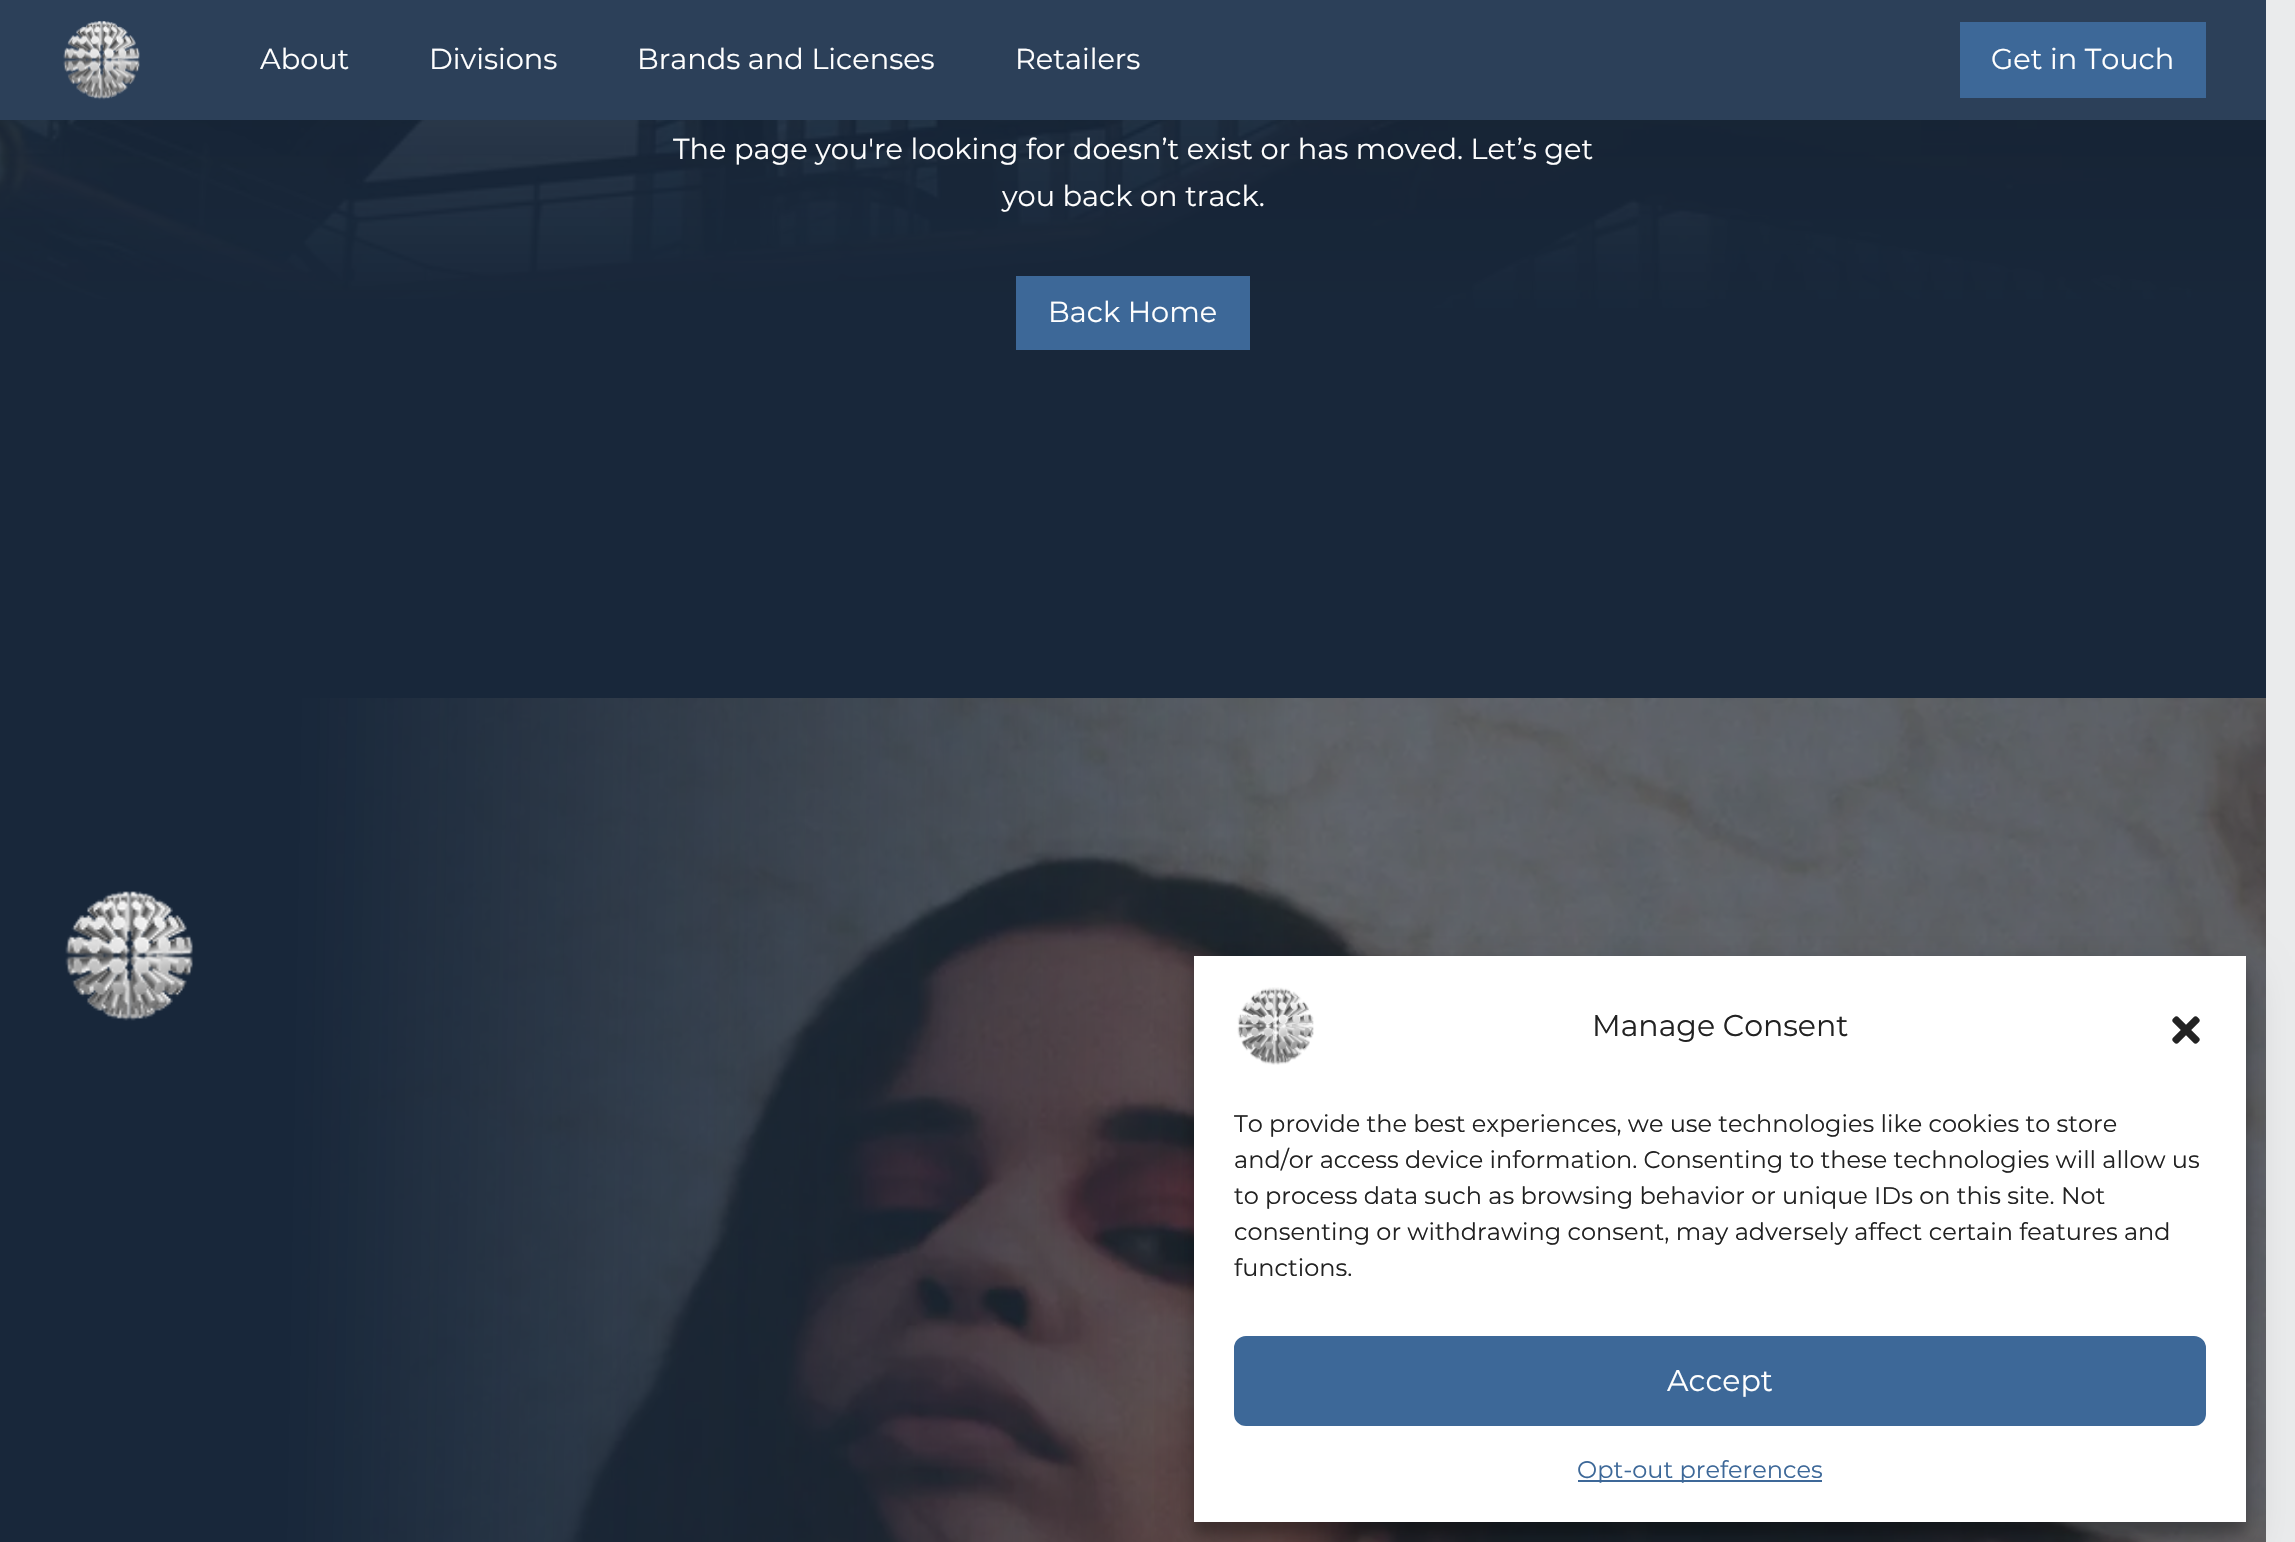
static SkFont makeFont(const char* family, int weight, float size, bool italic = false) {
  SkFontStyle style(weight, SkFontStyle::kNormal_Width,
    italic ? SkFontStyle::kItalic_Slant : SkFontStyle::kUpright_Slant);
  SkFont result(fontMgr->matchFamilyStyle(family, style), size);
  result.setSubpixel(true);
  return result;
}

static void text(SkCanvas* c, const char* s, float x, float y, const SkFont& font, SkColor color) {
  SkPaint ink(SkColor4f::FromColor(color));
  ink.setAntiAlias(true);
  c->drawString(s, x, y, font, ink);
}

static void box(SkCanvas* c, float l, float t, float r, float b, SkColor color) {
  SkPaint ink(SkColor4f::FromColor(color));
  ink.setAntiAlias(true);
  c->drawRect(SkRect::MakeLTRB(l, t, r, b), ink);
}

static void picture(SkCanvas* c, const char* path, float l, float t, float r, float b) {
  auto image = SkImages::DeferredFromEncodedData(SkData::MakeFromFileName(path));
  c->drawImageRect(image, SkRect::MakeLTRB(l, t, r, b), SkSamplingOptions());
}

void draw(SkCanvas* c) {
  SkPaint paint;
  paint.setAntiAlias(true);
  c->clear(0xffeaebec);
  box(c, 0, 0, 2266, 120, 0xff2c4059);
  picture(c, "img_01.png", 63, 21, 140, 100);
  SkFont face1 = makeFont("Montserrat", 100, 28.8f);
  text(c, "About", 260, 69, face1, 0xffffffff);
  text(c, "Divisions", 429, 69, face1, 0xffffffff);
  text(c, "Brands and Licenses", 637, 69, face1, 0xffffffff);
  text(c, "Retailers", 1015, 69, face1, 0xffffffff);
  box(c, 1960, 22, 2206, 98, 0xff3d6898);
  text(c, "Get in Touch", 1991, 69, face1, 0xffffffff);
  picture(c, "img_02.png", 0, 120, 2266, 698);
  text(c, "The page you're looking for doesn’t exist or has moved. Let’s get", 673, 159, face1, 0xffffffff);
  text(c, "you back on track.", 1002, 206, face1, 0xffffffff);
  box(c, 1016, 276, 1250, 350, 0xff3d6898);
  text(c, "Back Home", 1048, 322, face1, 0xffffffff);
  picture(c, "img_03.png", 0, 698, 2266, 1542);
  picture(c, "img_04.png", 65, 891, 193, 1021);
  paint.setColor(0x3b000000);
  paint.setMaskFilter(SkMaskFilter::MakeBlur(kNormal_SkBlurStyle, 6));
  c->drawRect(SkRect::MakeLTRB(1194, 968, 2246, 1534), paint);
  paint.setMaskFilter(nullptr);
  paint.setColor(0x30000000);
  paint.setMaskFilter(SkMaskFilter::MakeBlur(kNormal_SkBlurStyle, 20));
  c->drawRect(SkRect::MakeLTRB(1194, 976, 2246, 1542), paint);
  paint.setMaskFilter(nullptr);
  box(c, 1194, 956, 2246, 1522, 0xffffffff);
  picture(c, "img_05.png", 1237, 987, 1314, 1065);
  SkFont face2 = makeFont("Montserrat", 100, 30);
  text(c, "Manage Consent", 1592, 1036, face2, 0xff222222);
  picture(c, "img_06.png", 2172, 1016, 2200, 1044);
  SkFont face3 = makeFont("Montserrat", 100, 24);
  text(c, "To provide the best experiences, we use technologies like cookies to store", 1234, 1132, face3, 0xff222222);
  text(c, "and/or access device information. Consenting to these technologies will allow us", 1234, 1168, face3, 0xff222222);
  text(c, "to process data such as browsing behavior or unique IDs on this site. Not", 1234, 1204, face3, 0xff222222);
  text(c, "consenting or withdrawing consent, may adversely affect certain features and", 1234, 1240, face3, 0xff222222);
  text(c, "functions.", 1234, 1276, face3, 0xff222222);
  paint.setColor(0xff3d6898);
  c->drawRoundRect(SkRect::MakeLTRB(1235, 1337, 2205, 1425), 11, 11, paint);
  paint.setStyle(SkPaint::kStroke_Style);
  paint.setStrokeWidth(2);
  c->drawRoundRect(SkRect::MakeLTRB(1235, 1337, 2205, 1425), 11, 11, paint);
  text(c, "Accept", 1667, 1391, face2, 0xffffffff);
  box(c, 1578, 1480, 1822, 1482, 0xff3d6898);
  text(c, "Opt-out preferences", 1577, 1478, face3, 0xff3d6898);
}
